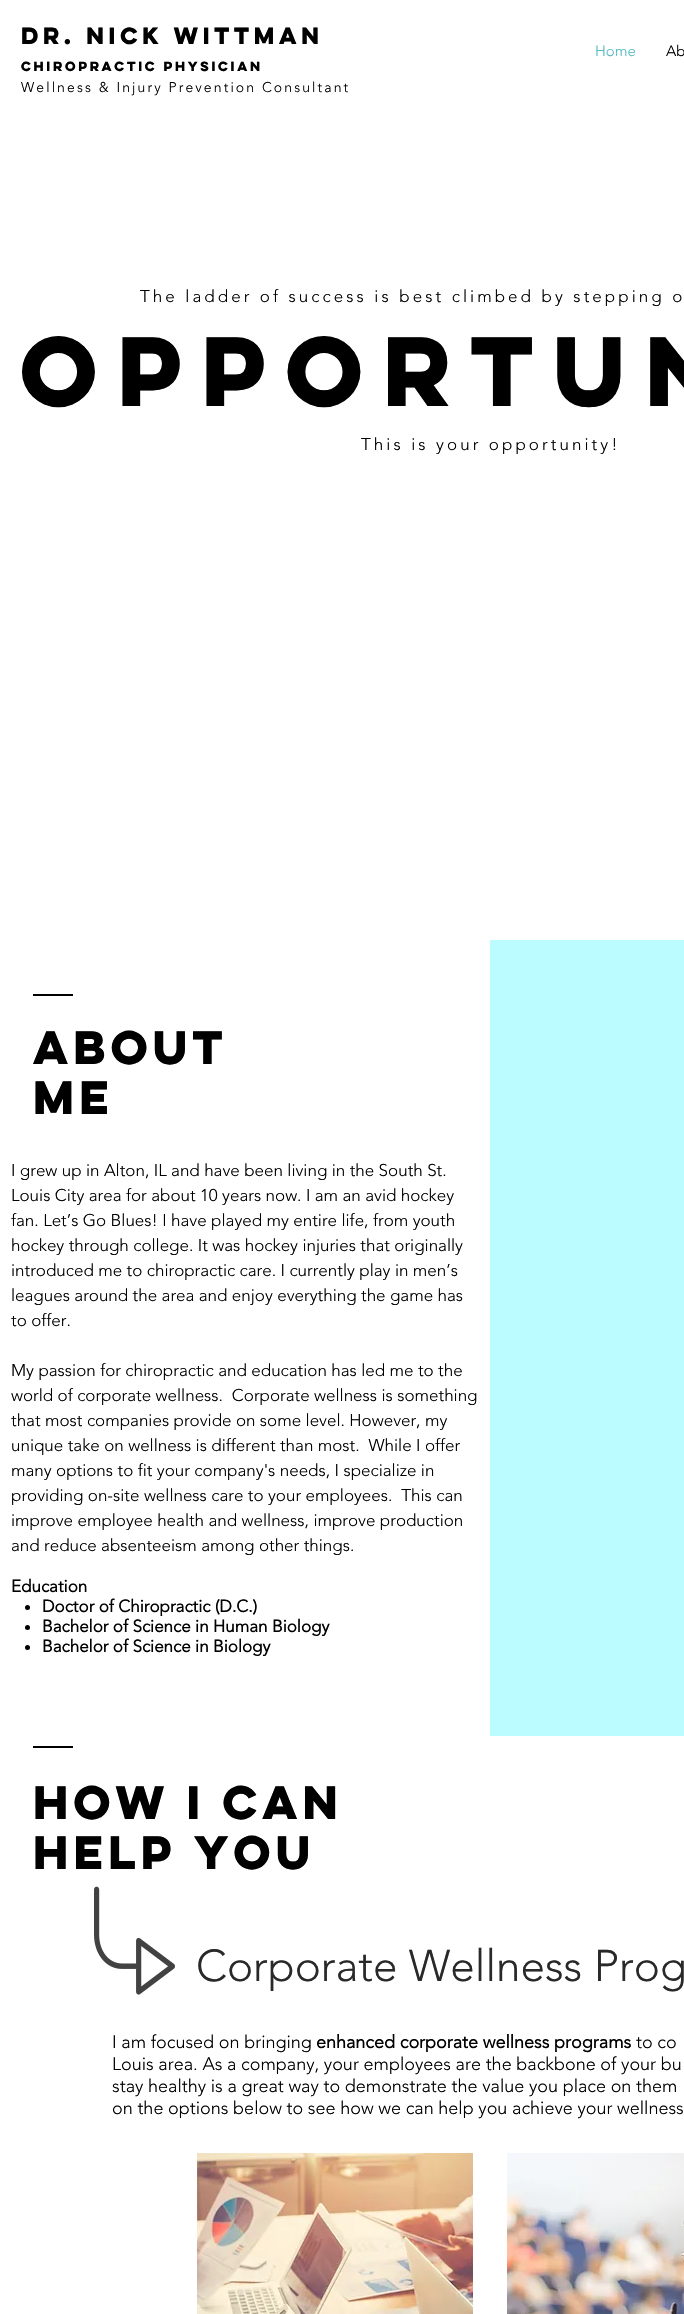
static SkFont makeFont(const char* family, int weight, float size, bool italic = false) {
  SkFontStyle style(weight, SkFontStyle::kNormal_Width,
    italic ? SkFontStyle::kItalic_Slant : SkFontStyle::kUpright_Slant);
  SkFont result(fontMgr->matchFamilyStyle(family, style), size);
  result.setSubpixel(true);
  return result;
}

static void text(SkCanvas* c, const char* s, float x, float y, const SkFont& font, SkColor color) {
  SkPaint ink(SkColor4f::FromColor(color));
  ink.setAntiAlias(true);
  c->drawString(s, x, y, font, ink);
}

static void spacedText(SkCanvas* c, const char* s, float x, float y, const SkFont& font, const SkPaint& ink, float letter, float word) {
  std::vector<SkGlyphID> glyphs(font.countText(s, strlen(s), SkTextEncoding::kUTF8));
  std::vector<float> xs(glyphs.size());
  font.textToGlyphs(s, strlen(s), SkTextEncoding::kUTF8, glyphs);
  font.getXPos(glyphs, xs, x);
  float extra = 0;
  for (size_t i = 0; i < glyphs.size(); i++) {
    xs[i] += extra;
    extra += letter + word * (glyphs[i] == font.unicharToGlyph(' '));
  }
  c->drawTextBlob(SkTextBlob::MakeFromPosHGlyphs(glyphs, xs, y, font), 0, 0, ink);
}

static void box(SkCanvas* c, float l, float t, float r, float b, SkColor color) {
  SkPaint ink(SkColor4f::FromColor(color));
  ink.setAntiAlias(true);
  c->drawRect(SkRect::MakeLTRB(l, t, r, b), ink);
}

static void picture(SkCanvas* c, const char* path, float l, float t, float r, float b) {
  auto image = SkImages::DeferredFromEncodedData(SkData::MakeFromFileName(path));
  c->drawImageRect(image, SkRect::MakeLTRB(l, t, r, b), SkSamplingOptions());
}

void draw(SkCanvas* c) {
  SkPaint paint;
  paint.setAntiAlias(true);
  c->clear(0xffffffff);
  SkFont face1 = makeFont("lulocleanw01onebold", 700, 21);
  text(c, "Dr. Nick Wittman", 21, 44, face1, 0xff000000);
  SkFont face2 = makeFont("lulocleanw01onebold", 700, 12);
  text(c, "Chiropractic Physician", 21, 71, face2, 0xff000000);
  SkFont face3 = makeFont("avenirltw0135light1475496", 300, 15);
  text(c, "Home", 595, 56, face3, 0xff57bbbf);
  text(c, "Ab", 666, 56, face3, 0xff000000);
  SkFont face4 = makeFont("avenirltw0135light1475496", 300, 14);
  paint.setColor(0xff000000);
  spacedText(c, "Wellness & Injury Prevention Consultant", 21, 92, face4, paint, 2.1f, 0);
  SkFont face5 = makeFont("avenirltw0135light1475496", 300, 17);
  spacedText(c, "The ladder of success is best climbed by stepping o", 140, 302, face5, paint, 3.05f, 0);
  SkFont face6 = makeFont("lulocleanw01onebold", 700, 88);
  text(c, "opportun", 20, 406, face6, 0xff000000);
  spacedText(c, "This is your opportunity!", 361, 450, face5, paint, 3.05f, 0);
  box(c, 33, 994, 73, 996, 0xff000000);
  SkFont face7 = makeFont("lulocleanw01onebold", 700, 42);
  spacedText(c, "ABOUT", 33, 1064, face7, paint, -4.25f, 0);
  spacedText(c, "ME", 33, 1114, face7, paint, -4.25f, 0);
  text(c, "I grew up in Alton, IL and have been living in the South St.", 11, 1176, face5, 0xff000000);
  text(c, "Louis City area for about 10 years now. I am an avid hockey", 11, 1201, face5, 0xff000000);
  text(c, "fan. Let’s Go Blues! I have played my entire life, from youth", 11, 1226, face5, 0xff000000);
  text(c, "hockey through college. It was hockey injuries that originally", 11, 1251, face5, 0xff000000);
  text(c, "introduced me to chiropractic care. I currently play in men’s", 11, 1276, face5, 0xff000000);
  text(c, "leagues around the area and enjoy everything the game has", 11, 1301, face5, 0xff000000);
  text(c, "to offer.", 11, 1326, face5, 0xff000000);
  text(c, "My passion for chiropractic and education has led me to the", 11, 1376, face5, 0xff000000);
  text(c, "world of corporate wellness.  Corporate wellness is something", 11, 1401, face5, 0xff000000);
  text(c, "that most companies provide on some level. However, my", 11, 1426, face5, 0xff000000);
  text(c, "unique take on wellness is different than most.  While I offer", 11, 1451, face5, 0xff000000);
  text(c, "many options to fit your company's needs, I specialize in", 11, 1476, face5, 0xff000000);
  text(c, "providing on-site wellness care to your employees.  This can", 11, 1501, face5, 0xff000000);
  text(c, "improve employee health and wellness, improve production", 11, 1526, face5, 0xff000000);
  text(c, "and reduce absenteeism among other things.", 11, 1551, face5, 0xff000000);
  SkFont face8 = makeFont("avenirltw0135light1475496", 700, 17);
  text(c, "Education", 11, 1592, face8, 0xff000000);
  c->drawCircle(27.5f, 1607.5f, 2.5f, paint);
  text(c, "Doctor of Chiropractic (D.C.)", 42, 1612, face8, 0xff000000);
  c->drawCircle(27.5f, 1627.5f, 2.5f, paint);
  text(c, "Bachelor of Science in Human Biology", 42, 1632, face8, 0xff000000);
  c->drawCircle(27.5f, 1647.5f, 2.5f, paint);
  text(c, "Bachelor of Science in Biology", 42, 1652, face8, 0xff000000);
  box(c, 490, 940, 684, 1736, 0xffbafcff);
  box(c, 33, 1746, 73, 1748, 0xff000000);
  spacedText(c, "How I Can", 33, 1819, face7, paint, -4.25f, 0);
  spacedText(c, "Help You", 33, 1869, face7, paint, -4.25f, 0);
  picture(c, "img_01.png", 94, 1886, 175, 1995);
  SkFont face9 = makeFont("avenirltw0135light1475496", 300, 44);
  text(c, "Corporate Wellness Prog", 196, 1981, face9, 0xff292929);
  SkFont face10 = makeFont("avenirltw0135light1475496", 300, 18);
  text(c, "I am focused on bringing", 112, 2048, face10, 0xff000000);
  SkFont face11 = makeFont("avenirltw0135light1475496", 700, 18);
  text(c, "enhanced corporate wellness programs", 316, 2048, face11, 0xff000000);
  text(c, "to co", 636, 2048, face10, 0xff000000);
  text(c, "Louis area. As a company, your employees are the backbone of your bu", 112, 2070, face10, 0xff000000);
  text(c, "stay healthy is a great way to demonstrate the value you place on them", 112, 2092, face10, 0xff000000);
  text(c, "on the options below to see how we can help you achieve your wellness", 112, 2114, face10, 0xff000000);
  picture(c, "img_02.png", 197, 2153, 473, 2314);
  picture(c, "img_03.png", 507, 2153, 684, 2314);
}
